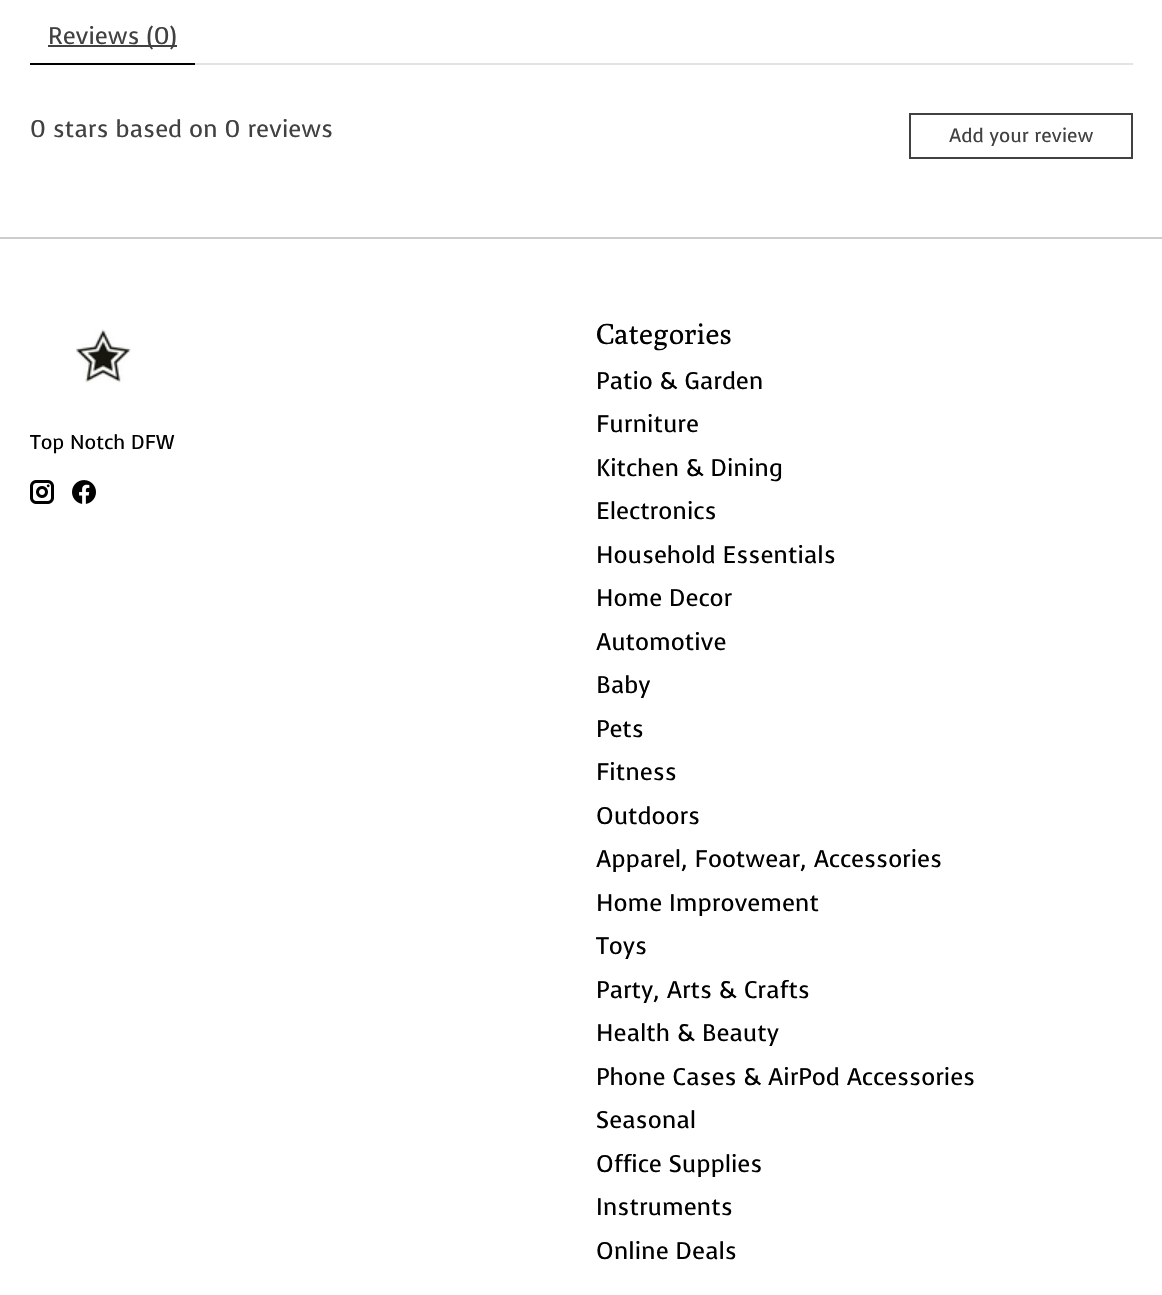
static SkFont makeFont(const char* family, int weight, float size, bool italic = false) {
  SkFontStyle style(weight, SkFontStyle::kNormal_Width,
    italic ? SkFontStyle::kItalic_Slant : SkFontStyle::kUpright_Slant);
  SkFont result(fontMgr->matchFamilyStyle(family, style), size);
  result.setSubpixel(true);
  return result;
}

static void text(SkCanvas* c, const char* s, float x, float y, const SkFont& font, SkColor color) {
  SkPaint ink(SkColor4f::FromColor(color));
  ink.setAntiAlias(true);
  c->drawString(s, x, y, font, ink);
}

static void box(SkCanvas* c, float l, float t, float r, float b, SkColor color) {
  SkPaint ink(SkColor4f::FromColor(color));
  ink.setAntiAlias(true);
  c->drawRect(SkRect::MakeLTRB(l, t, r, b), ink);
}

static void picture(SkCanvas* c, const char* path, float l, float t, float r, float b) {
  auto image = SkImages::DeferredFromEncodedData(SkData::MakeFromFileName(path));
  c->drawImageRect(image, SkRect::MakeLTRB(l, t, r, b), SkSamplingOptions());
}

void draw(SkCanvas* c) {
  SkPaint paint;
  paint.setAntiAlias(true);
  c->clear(0xffffffff);
  box(c, 30, 63, 195, 65, 0xff000000);
  box(c, 48, 45, 177, 47, 0xff414141);
  SkFont face1 = makeFont("Voces", 400, 24);
  text(c, "Reviews (0)", 48, 44, face1, 0xff414141);
  box(c, 195, 63, 1133, 65, 0xffe3e3e3);
  text(c, "0 stars based on 0 reviews", 30, 137, face1, 0xff414141);
  paint.setStyle(SkPaint::kStroke_Style);
  paint.setStrokeWidth(2);
  paint.setColor(0xff414141);
  c->drawRect(SkRect::MakeLTRB(910, 114, 1132, 158), paint);
  SkFont face2 = makeFont("Voces", 400, 19.25f);
  text(c, "Add your review", 949, 142, face2, 0xff414141);
  box(c, 0, 237, 1162, 239, 0xffcccccc);
  picture(c, "img_01.png", 76, 329, 131, 383);
  SkFont face3 = makeFont("Voces", 400, 20);
  text(c, "Top Notch DFW", 30, 449, face3, 0xff000000);
  picture(c, "img_02.png", 30, 480, 54, 504);
  picture(c, "img_03.png", 72, 480, 96, 504);
  SkFont face4 = makeFont("Poly", 400, 29);
  text(c, "Categories", 596, 344, face4, 0xff000000);
  text(c, "Patio & Garden", 596, 389, face1, 0xff000000);
  text(c, "Furniture", 596, 432, face1, 0xff000000);
  text(c, "Kitchen & Dining", 596, 476, face1, 0xff000000);
  text(c, "Electronics", 596, 519, face1, 0xff000000);
  text(c, "Household Essentials", 596, 563, face1, 0xff000000);
  text(c, "Home Decor", 596, 606, face1, 0xff000000);
  text(c, "Automotive", 596, 650, face1, 0xff000000);
  text(c, "Baby", 596, 693, face1, 0xff000000);
  text(c, "Pets", 596, 737, face1, 0xff000000);
  text(c, "Fitness", 596, 780, face1, 0xff000000);
  text(c, "Outdoors", 596, 824, face1, 0xff000000);
  text(c, "Apparel, Footwear, Accessories", 596, 867, face1, 0xff000000);
  text(c, "Home Improvement", 596, 911, face1, 0xff000000);
  text(c, "Toys", 596, 954, face1, 0xff000000);
  text(c, "Party, Arts & Crafts", 596, 998, face1, 0xff000000);
  text(c, "Health & Beauty", 596, 1041, face1, 0xff000000);
  text(c, "Phone Cases & AirPod Accessories", 596, 1085, face1, 0xff000000);
  text(c, "Seasonal", 596, 1128, face1, 0xff000000);
  text(c, "Office Supplies", 596, 1172, face1, 0xff000000);
  text(c, "Instruments", 596, 1215, face1, 0xff000000);
  text(c, "Online Deals", 596, 1259, face1, 0xff000000);
}
